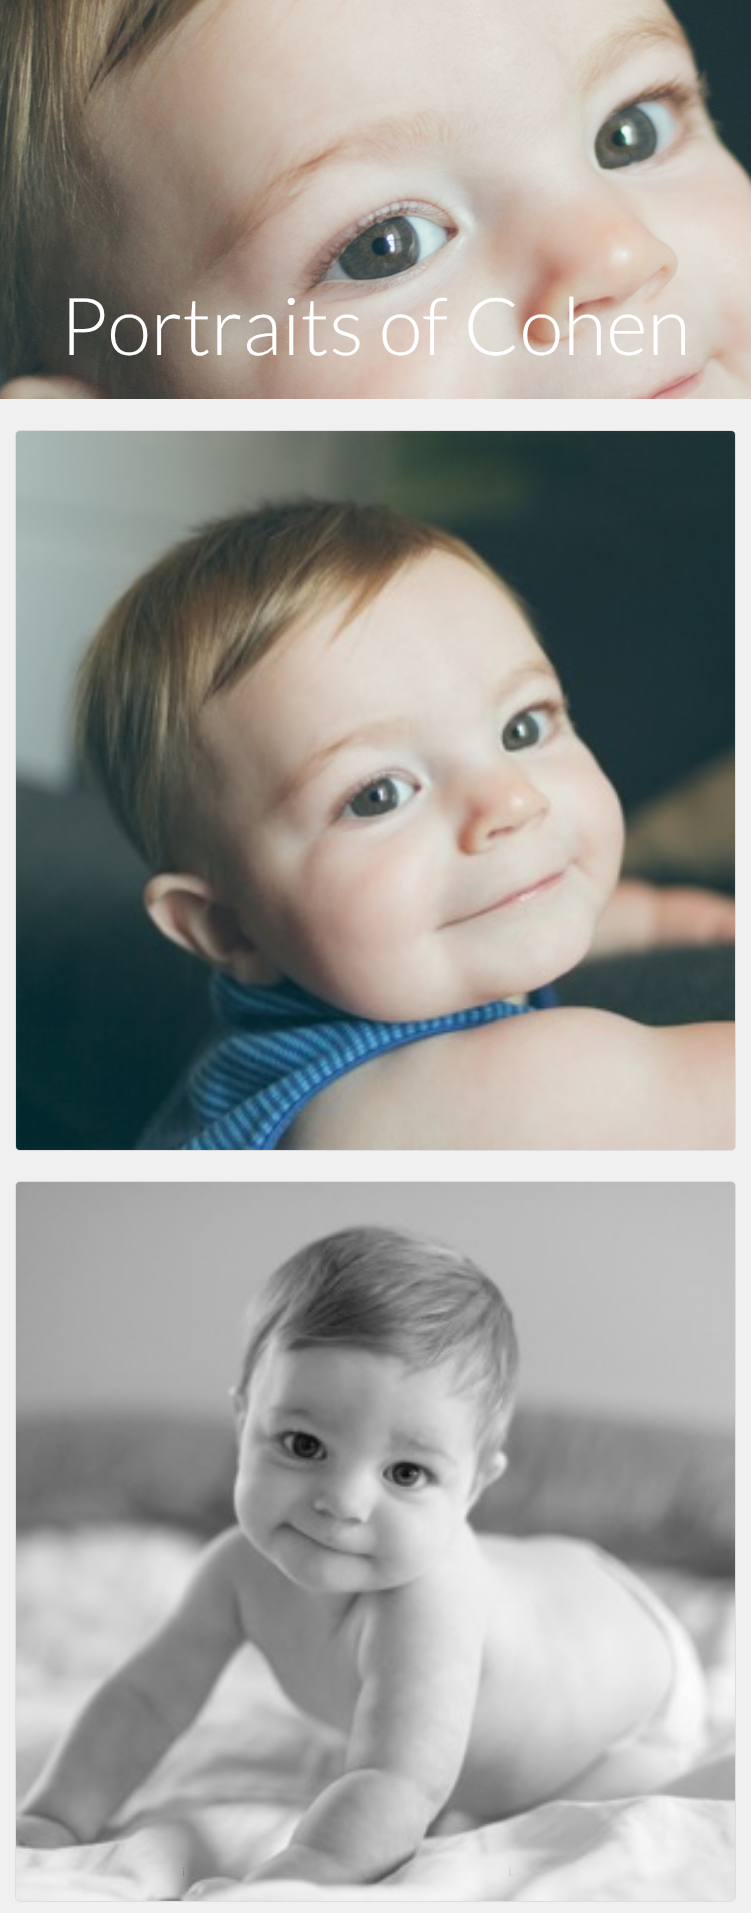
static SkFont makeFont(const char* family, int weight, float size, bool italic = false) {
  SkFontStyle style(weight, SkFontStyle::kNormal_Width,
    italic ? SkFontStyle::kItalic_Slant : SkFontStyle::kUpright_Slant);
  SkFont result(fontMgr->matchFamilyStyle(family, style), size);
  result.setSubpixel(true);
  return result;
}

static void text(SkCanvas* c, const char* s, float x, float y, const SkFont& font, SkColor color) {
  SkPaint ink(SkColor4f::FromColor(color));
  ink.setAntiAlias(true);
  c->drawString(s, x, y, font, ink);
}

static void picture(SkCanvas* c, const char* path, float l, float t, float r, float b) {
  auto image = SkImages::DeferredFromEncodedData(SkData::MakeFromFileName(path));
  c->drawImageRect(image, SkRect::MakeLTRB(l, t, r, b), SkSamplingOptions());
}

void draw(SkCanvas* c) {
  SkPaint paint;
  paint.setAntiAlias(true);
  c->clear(0xfff0f0f0);
  picture(c, "img_01.png", 0, 0, 751, 399);
  SkFont face1 = makeFont("Lato", 300, 80);
  text(c, "Portraits of Cohen", 60, 355, face1, 0xffffffff);
  paint.setStyle(SkPaint::kStroke_Style);
  paint.setStrokeWidth(1);
  paint.setColor(0xffdddddd);
  c->drawRoundRect(SkRect::MakeLTRB(15.5f, 430.5f, 735.5f, 1150.5f), 4.5f, 4.5f, paint);
  picture(c, "img_02.png", 16, 431, 735, 1150);
  c->drawRoundRect(SkRect::MakeLTRB(15.5f, 1181.5f, 735.5f, 1901.5f), 4.5f, 4.5f, paint);
  picture(c, "img_03.png", 16, 1182, 735, 1901);
  SkFont face2 = makeFont("Lato", 400, 12);
  text(c, "i", 182, 1876, face2, 0xff868686);
  text(c, "L", 508, 1876, face2, 0xffd2d2d2);
}
